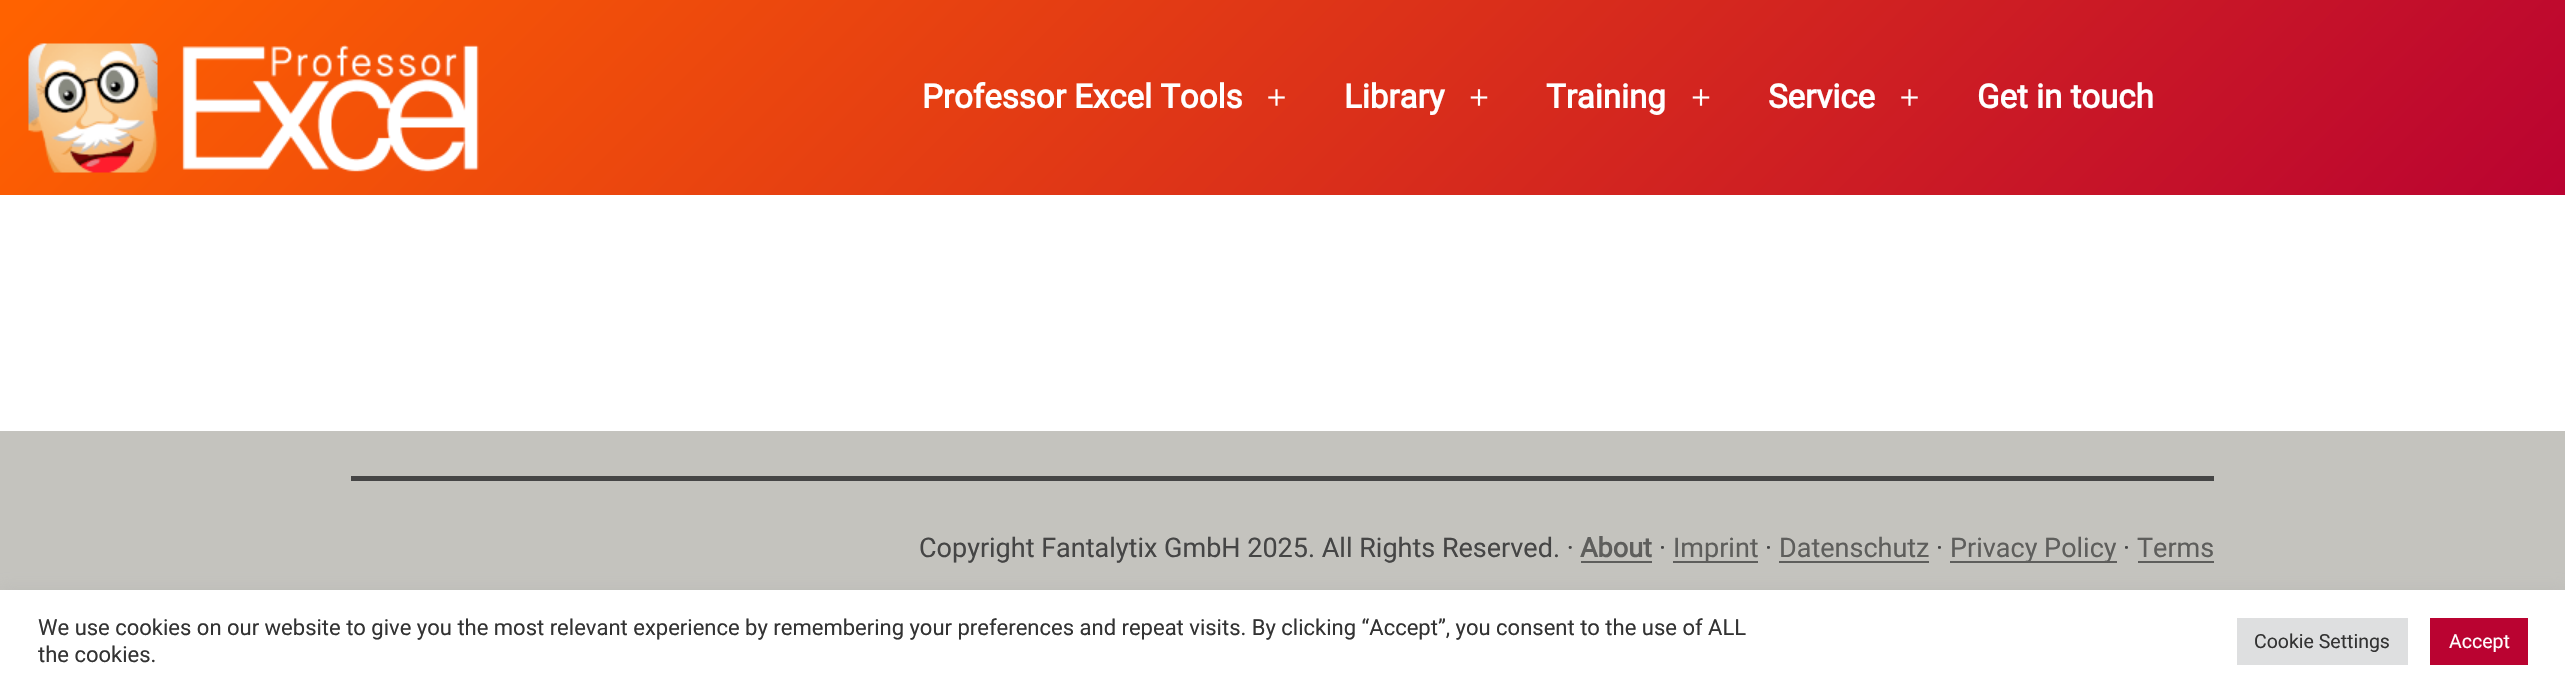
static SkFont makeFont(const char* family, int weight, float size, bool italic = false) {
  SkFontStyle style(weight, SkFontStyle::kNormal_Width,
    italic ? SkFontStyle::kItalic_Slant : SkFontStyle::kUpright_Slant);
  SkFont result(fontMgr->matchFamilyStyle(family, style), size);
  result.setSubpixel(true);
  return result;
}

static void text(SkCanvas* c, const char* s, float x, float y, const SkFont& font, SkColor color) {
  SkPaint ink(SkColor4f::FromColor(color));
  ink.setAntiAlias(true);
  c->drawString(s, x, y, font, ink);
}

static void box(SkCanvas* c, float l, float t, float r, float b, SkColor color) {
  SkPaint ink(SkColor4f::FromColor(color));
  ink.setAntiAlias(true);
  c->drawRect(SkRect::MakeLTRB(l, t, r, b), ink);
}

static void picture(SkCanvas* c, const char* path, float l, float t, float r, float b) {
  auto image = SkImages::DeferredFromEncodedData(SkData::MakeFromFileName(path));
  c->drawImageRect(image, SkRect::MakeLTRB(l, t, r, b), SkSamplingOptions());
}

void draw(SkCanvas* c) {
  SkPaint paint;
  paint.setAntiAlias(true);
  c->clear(0xffffffff);
  {
    const SkColor colors[] = {0xffff6200, 0xffba0331};
    const float stops[] = {0.01f, 1};
    const SkPoint ends[] = {{592, -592}, {1973, 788}};
    paint.setShader(SkGradientShader::MakeLinear(ends, colors, stops, 2, SkTileMode::kClamp));
    paint.setAlpha(255);
  }
  c->drawRect(SkRect::MakeLTRB(0, 0, 2565, 195), paint);
  picture(c, "img_01.png", 28, 43, 479, 173);
  SkFont face1 = makeFont("Roboto", 700, 33);
  text(c, "Professor Excel Tools", 922, 108, face1, 0xffffffff);
  picture(c, "img_02.png", 1268, 89, 1285, 106);
  text(c, "Library", 1344, 108, face1, 0xffffffff);
  picture(c, "img_03.png", 1470, 89, 1488, 106);
  text(c, "Training", 1546, 108, face1, 0xffffffff);
  picture(c, "img_04.png", 1692, 89, 1710, 106);
  text(c, "Service", 1768, 108, face1, 0xffffffff);
  picture(c, "img_05.png", 1901, 89, 1918, 106);
  text(c, "Get in touch", 1977, 108, face1, 0xffffffff);
  box(c, 0, 431, 2565, 590, 0xffc4c3be);
  box(c, 351, 476, 2214, 481, 0xff454545);
  SkFont face2 = makeFont("Roboto", 400, 27);
  text(c, "Copyright Fantalytix GmbH 2025. All Rights Reserved. ·", 919, 557, face2, 0xff454545);
  SkFont face3 = makeFont("Roboto", 700, 27);
  text(c, "About", 1580, 557, face3, 0xff5e5e5c);
  box(c, 1581, 561, 1652, 563, 0xff5e5e5c);
  text(c, "·", 1659, 557, face2, 0xff454545);
  box(c, 1673, 561, 1758, 563, 0xff5e5e5c);
  text(c, "Imprint", 1673, 557, face2, 0xff5e5e5c);
  text(c, "·", 1765, 557, face2, 0xff454545);
  text(c, "Datenschutz", 1779, 557, face2, 0xff5e5e5c);
  box(c, 1779, 561, 1929, 563, 0xff5e5e5c);
  text(c, "·", 1936, 557, face2, 0xff454545);
  box(c, 1950, 561, 2117, 563, 0xff5e5e5c);
  text(c, "Privacy Policy", 1950, 557, face2, 0xff5e5e5c);
  text(c, "·", 2123, 557, face2, 0xff454545);
  text(c, "Terms", 2137, 557, face2, 0xff5e5e5c);
  box(c, 2138, 561, 2214, 563, 0xff5e5e5c);
  paint.setShader(nullptr);
  paint.setColor(0x4dacabab);
  paint.setMaskFilter(SkMaskFilter::MakeBlur(kNormal_SkBlurStyle, 7.5f));
  c->drawRect(SkRect::MakeLTRB(0, 588, 2565, 692), paint);
  paint.setMaskFilter(nullptr);
  box(c, 0, 590, 2565, 692, 0xffffffff);
  SkFont face4 = makeFont("Roboto", 400, 22);
  text(c, "We use cookies on our website to give you the most relevant experience by remembering your preferences and repeat visits. By clicking “Accept”, you consent to the use of ALL", 38, 635, face4, 0xff333333);
  text(c, "the cookies.", 38, 662, face4, 0xff333333);
  box(c, 2237, 618, 2408, 665, 0xffdedfe0);
  SkFont face5 = makeFont("Roboto", 400, 19.5f);
  text(c, "Cookie Settings", 2254, 648, face5, 0xff333333);
  box(c, 2430, 618, 2528, 665, 0xffba0331);
  text(c, "Accept", 2449, 648, face5, 0xffffffff);
}
